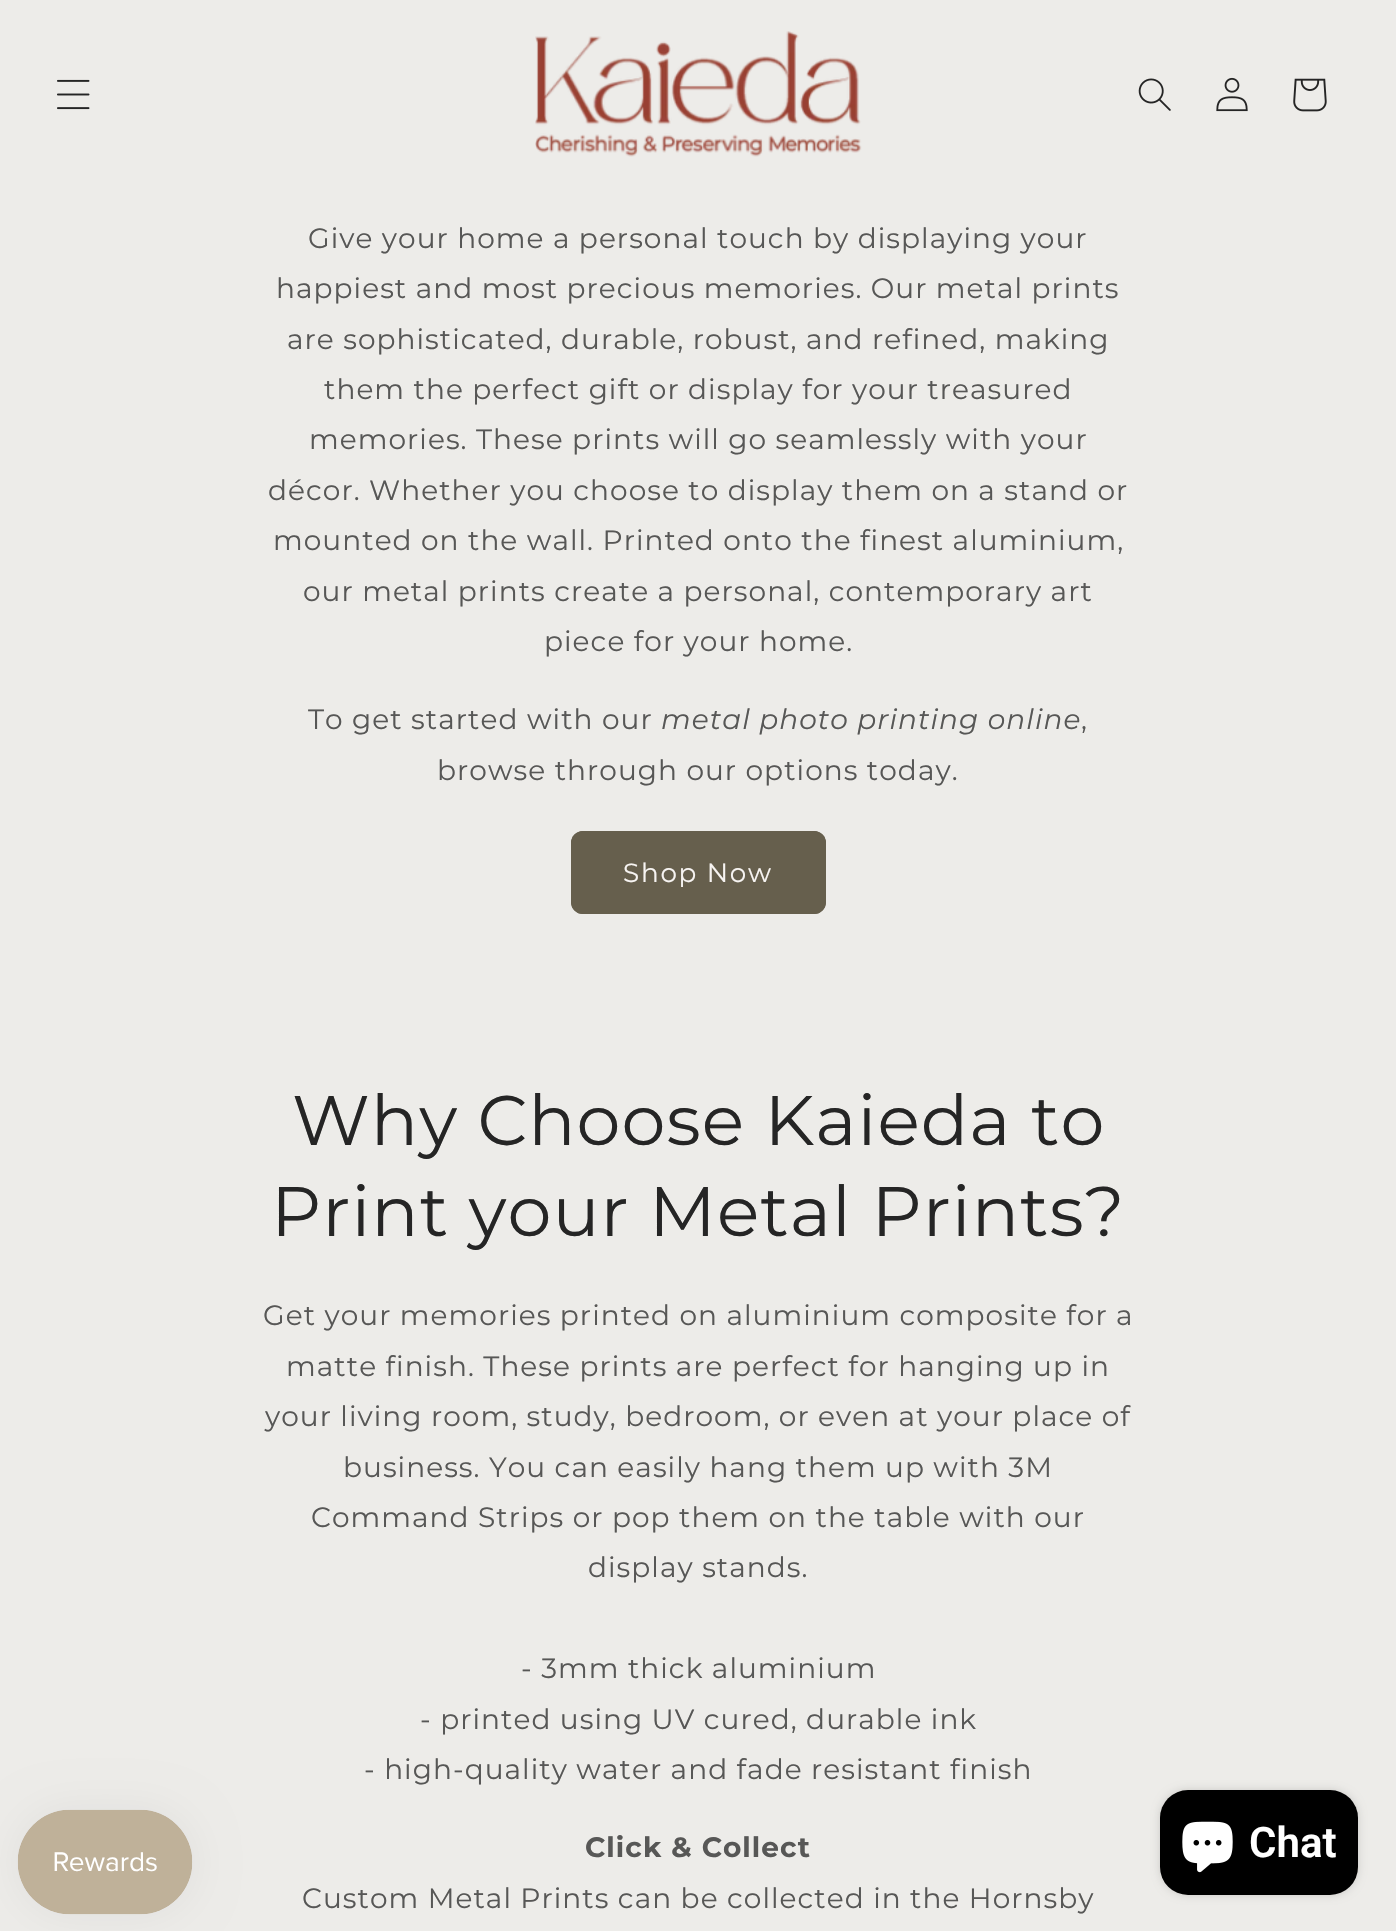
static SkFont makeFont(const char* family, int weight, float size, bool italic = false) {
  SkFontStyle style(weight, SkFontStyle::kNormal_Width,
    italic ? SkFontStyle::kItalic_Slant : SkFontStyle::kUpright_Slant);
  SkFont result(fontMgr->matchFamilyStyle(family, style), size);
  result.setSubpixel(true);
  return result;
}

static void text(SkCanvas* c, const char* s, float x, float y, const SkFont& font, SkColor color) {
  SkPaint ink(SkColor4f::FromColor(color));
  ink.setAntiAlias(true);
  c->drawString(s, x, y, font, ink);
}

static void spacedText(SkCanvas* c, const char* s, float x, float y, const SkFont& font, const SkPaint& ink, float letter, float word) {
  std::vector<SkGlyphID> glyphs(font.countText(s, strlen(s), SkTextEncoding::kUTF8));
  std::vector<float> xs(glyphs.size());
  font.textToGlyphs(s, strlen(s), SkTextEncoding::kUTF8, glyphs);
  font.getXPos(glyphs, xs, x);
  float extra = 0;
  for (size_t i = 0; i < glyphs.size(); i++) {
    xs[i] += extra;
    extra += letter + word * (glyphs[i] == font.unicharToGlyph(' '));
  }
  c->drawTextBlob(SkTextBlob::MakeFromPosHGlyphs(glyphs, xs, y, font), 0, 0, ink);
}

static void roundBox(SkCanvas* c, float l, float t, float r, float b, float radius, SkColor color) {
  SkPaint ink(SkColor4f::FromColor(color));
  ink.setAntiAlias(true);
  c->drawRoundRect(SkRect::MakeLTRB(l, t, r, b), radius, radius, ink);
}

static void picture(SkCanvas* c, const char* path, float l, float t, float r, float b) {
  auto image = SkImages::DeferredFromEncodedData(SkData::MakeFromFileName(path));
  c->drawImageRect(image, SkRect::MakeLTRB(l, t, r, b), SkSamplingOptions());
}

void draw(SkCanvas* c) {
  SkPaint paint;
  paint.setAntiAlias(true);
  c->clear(0xffedece9);
  picture(c, "img_01.png", 57, 79, 90, 110);
  picture(c, "img_02.png", 535, 31, 862, 157);
  picture(c, "img_03.png", 1138, 78, 1171, 111);
  picture(c, "img_04.png", 1216, 77, 1248, 112);
  picture(c, "img_05.png", 1293, 78, 1327, 112);
  paint.setColor(0x0d000000);
  paint.setMaskFilter(SkMaskFilter::MakeBlur(kNormal_SkBlurStyle, 22));
  c->drawRoundRect(SkRect::MakeLTRB(18, 1810, 193, 1915), 52.5f, 52.5f, paint);
  paint.setMaskFilter(nullptr);
  picture(c, "img_06.png", 17, 1809, 193, 1915);
  SkFont face1 = makeFont("Montserrat", 100, 28);
  paint.setColor(0xff575756);
  spacedText(c, "Give your home a personal touch by displaying your", 308, 248, face1, paint, 1.05f, 0);
  spacedText(c, "happiest and most precious memories. Our metal prints", 276, 298, face1, paint, 1.05f, 0);
  spacedText(c, "are sophisticated, durable, robust, and refined, making", 287, 349, face1, paint, 1.05f, 0);
  spacedText(c, "them the perfect gift or display for your treasured", 324, 399, face1, paint, 1.05f, 0);
  spacedText(c, "memories. These prints will go seamlessly with your", 309, 449, face1, paint, 1.05f, 0);
  spacedText(c, "décor. Whether you choose to display them on a stand or", 268, 500, face1, paint, 1.05f, 0);
  spacedText(c, "mounted on the wall. Printed onto the finest aluminium,", 273, 550, face1, paint, 1.05f, 0);
  spacedText(c, "our metal prints create a personal, contemporary art", 303, 601, face1, paint, 1.05f, 0);
  spacedText(c, "piece for your home.", 544, 651, face1, paint, 1.05f, 0);
  spacedText(c, "To get started with our", 308, 729, face1, paint, 1.05f, 0);
  SkFont face2 = makeFont("Montserrat", 400, 28, true);
  spacedText(c, "metal photo printing online", 661, 729, face2, paint, 1.05f, 0);
  spacedText(c, ",", 1081, 729, face1, paint, 1.05f, 0);
  spacedText(c, "browse through our options today.", 437, 780, face1, paint, 1.05f, 0);
  roundBox(c, 571, 831, 826, 914, 12, 0xff665f4d);
  paint.setStyle(SkPaint::kStroke_Style);
  paint.setStrokeWidth(2);
  paint.setColor(0xff665f4d);
  c->drawRoundRect(SkRect::MakeLTRB(572, 832, 825, 913), 11, 11, paint);
  SkFont face3 = makeFont("Montserrat", 100, 26.25f);
  paint.setStyle(SkPaint::kFill_Style);
  paint.setColor(0xfff7f4f2);
  spacedText(c, "Shop Now", 623, 882, face3, paint, 1.75f, 0);
  SkFont face4 = makeFont("Montserrat", 100, 70);
  paint.setColor(0xff252525);
  spacedText(c, "Why Choose Kaieda to", 292, 1145, face4, paint, 1.05f, 0);
  spacedText(c, "Print your Metal Prints?", 271, 1236, face4, paint, 1.05f, 0);
  paint.setColor(0xff575756);
  spacedText(c, "Get your memories printed on aluminium composite for a", 263, 1325, face1, paint, 1.05f, 0);
  spacedText(c, "matte finish. These prints are perfect for hanging up in", 286, 1376, face1, paint, 1.05f, 0);
  spacedText(c, "your living room, study, bedroom, or even at your place of", 265, 1426, face1, paint, 1.05f, 0);
  spacedText(c, "business. You can easily hang them up with 3M", 343, 1477, face1, paint, 1.05f, 0);
  spacedText(c, "Command Strips or pop them on the table with our", 311, 1527, face1, paint, 1.05f, 0);
  spacedText(c, "display stands.", 588, 1577, face1, paint, 1.05f, 0);
  spacedText(c, "- 3mm thick aluminium", 521, 1678, face1, paint, 1.05f, 0);
  spacedText(c, "- printed using UV cured, durable ink", 420, 1729, face1, paint, 1.05f, 0);
  spacedText(c, "- high-quality water and fade resistant finish", 364, 1779, face1, paint, 1.05f, 0);
  SkFont face5 = makeFont("Montserrat", 700, 28);
  spacedText(c, "Click & Collect", 585, 1857, face5, paint, 1.05f, 0);
  spacedText(c, "Custom Metal Prints can be collected in the Hornsby", 302, 1908, face1, paint, 1.05f, 0);
  paint.setColor(0x26000000);
  paint.setMaskFilter(SkMaskFilter::MakeBlur(kNormal_SkBlurStyle, 4.5f));
  c->drawRoundRect(SkRect::MakeLTRB(1160, 1790, 1358, 1895), 28, 28, paint);
  paint.setMaskFilter(nullptr);
  roundBox(c, 1160, 1790, 1358, 1895, 28, 0xff000000);
  picture(c, "img_07.png", 1182, 1821, 1233, 1873);
  SkFont face6 = makeFont("Roboto", 600, 42);
  text(c, "Chat", 1249, 1857, face6, 0xffffffff);
}
